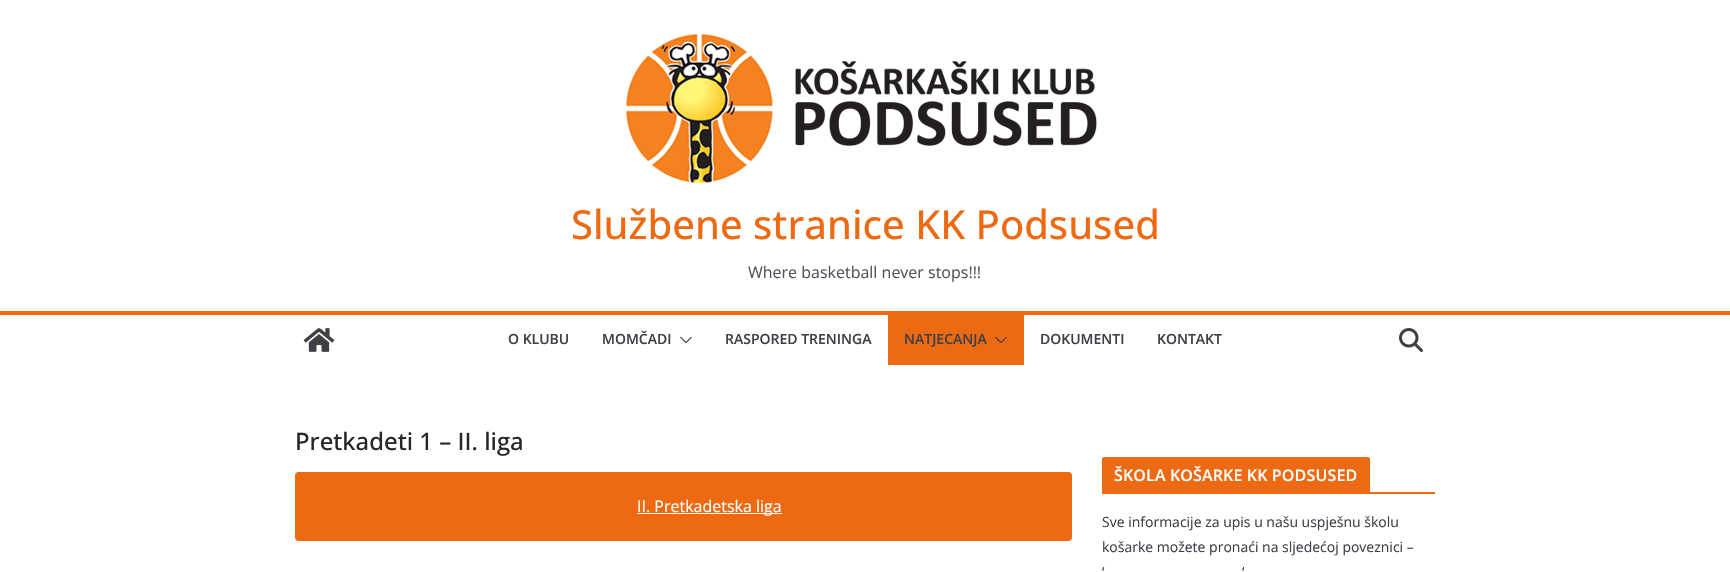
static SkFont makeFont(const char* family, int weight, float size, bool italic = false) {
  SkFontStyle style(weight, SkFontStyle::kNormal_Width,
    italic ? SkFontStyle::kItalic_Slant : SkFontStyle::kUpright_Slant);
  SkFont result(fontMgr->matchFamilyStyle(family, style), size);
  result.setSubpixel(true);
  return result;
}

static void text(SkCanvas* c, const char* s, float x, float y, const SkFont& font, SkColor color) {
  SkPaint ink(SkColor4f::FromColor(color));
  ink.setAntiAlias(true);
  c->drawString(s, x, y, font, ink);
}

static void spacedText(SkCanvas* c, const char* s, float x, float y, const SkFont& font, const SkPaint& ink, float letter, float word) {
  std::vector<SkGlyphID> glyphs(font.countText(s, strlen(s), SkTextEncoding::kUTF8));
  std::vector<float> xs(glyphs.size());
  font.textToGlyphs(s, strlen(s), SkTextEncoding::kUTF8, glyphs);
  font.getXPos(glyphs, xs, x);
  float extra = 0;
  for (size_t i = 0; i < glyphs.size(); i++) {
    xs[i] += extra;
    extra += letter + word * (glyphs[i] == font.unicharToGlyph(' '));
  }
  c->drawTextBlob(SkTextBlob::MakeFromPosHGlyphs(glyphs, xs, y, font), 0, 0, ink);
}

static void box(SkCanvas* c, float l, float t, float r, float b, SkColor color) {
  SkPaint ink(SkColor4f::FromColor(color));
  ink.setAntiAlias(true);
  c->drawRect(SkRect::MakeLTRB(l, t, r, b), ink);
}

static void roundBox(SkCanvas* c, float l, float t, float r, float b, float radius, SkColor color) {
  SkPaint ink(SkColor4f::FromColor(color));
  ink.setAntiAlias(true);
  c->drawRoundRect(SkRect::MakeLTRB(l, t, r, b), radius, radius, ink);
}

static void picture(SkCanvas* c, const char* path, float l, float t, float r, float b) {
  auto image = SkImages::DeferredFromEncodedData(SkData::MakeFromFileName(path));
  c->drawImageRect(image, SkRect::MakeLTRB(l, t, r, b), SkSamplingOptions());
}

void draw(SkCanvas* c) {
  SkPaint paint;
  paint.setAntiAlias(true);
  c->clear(0xffffffff);
  picture(c, "img_01.png", 626, 33, 1097, 184);
  SkFont face1 = makeFont("Open Sans", 500, 40);
  text(c, "Službene stranice KK Podsused", 571, 239, face1, 0xffed6a12);
  SkFont face2 = makeFont("Open Sans", 400, 16);
  text(c, "Where basketball never stops!!!", 748, 278, face2, 0xff52525b);
  box(c, 0, 311, 1730, 315, 0xffed6a12);
  picture(c, "img_02.png", 303, 328, 335, 352);
  SkFont face3 = makeFont("Open Sans", 600, 14);
  text(c, "O KLUBU", 508, 344, face3, 0xff3f3f46);
  text(c, "MOMČADI", 602, 344, face3, 0xff3f3f46);
  picture(c, "img_03.png", 680, 336, 692, 344);
  text(c, "RASPORED TRENINGA", 725, 344, face3, 0xff3f3f46);
  box(c, 888, 315, 1024, 365, 0xffed6a12);
  text(c, "NATJECANJA", 904, 344, face3, 0xff3f3f46);
  picture(c, "img_04.png", 995, 336, 1007, 344);
  text(c, "DOKUMENTI", 1040, 344, face3, 0xff3f3f46);
  text(c, "KONTAKT", 1157, 344, face3, 0xff3f3f46);
  picture(c, "img_05.png", 1399, 328, 1423, 352);
  SkFont face4 = makeFont("Open Sans", 500, 24);
  text(c, "Pretkadeti 1 – II. liga", 295, 450, face4, 0xff27272a);
  roundBox(c, 295, 472, 1072, 541, 4, 0xffed6a12);
  box(c, 637, 513, 782, 514, 0xffffffff);
  text(c, "II. Pretkadetska liga", 637, 512, face2, 0xffffffff);
  box(c, 1102, 492, 1435, 494, 0xffed6a12);
  paint.setColor(0xffed6a12);
  c->drawPath(SkPathBuilder().moveTo(1104, 457).lineTo(1368, 457).cubicTo(1369, 457, 1370, 458, 1370, 459).lineTo(1370, 492).lineTo(1102, 492).lineTo(1102, 459).cubicTo(1102, 458, 1103, 457, 1104, 457).close().detach(), paint);
  SkFont face5 = makeFont("Open Sans", 600, 16);
  paint.setColor(0xffffffff);
  spacedText(c, "ŠKOLA KOŠARKE KK PODSUSED", 1114, 481, face5, paint, 0.15f, 0);
  SkFont face6 = makeFont("Open Sans", 400, 14);
  text(c, "Sve informacije za upis u našu uspješnu školu", 1102, 527, face6, 0xff3f3f46);
  text(c, "košarke možete pronaći na sljedećoj poveznici –", 1102, 552, face6, 0xff3f3f46);
  text(c, "‘", 1102, 577, face6, 0xff3f3f46);
  text(c, "‘", 1242, 577, face6, 0xff3f3f46);
}
